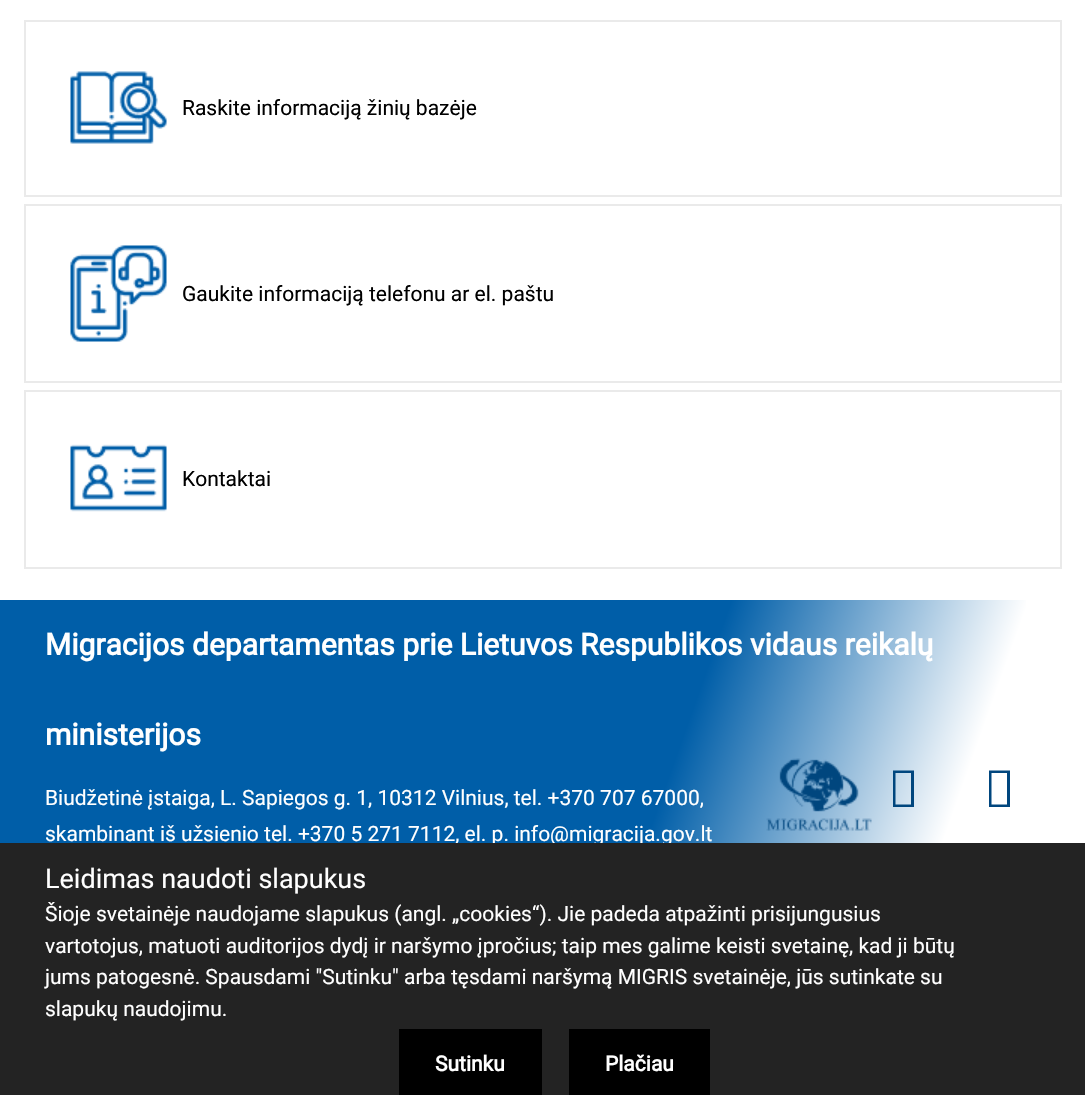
static SkFont makeFont(const char* family, int weight, float size, bool italic = false) {
  SkFontStyle style(weight, SkFontStyle::kNormal_Width,
    italic ? SkFontStyle::kItalic_Slant : SkFontStyle::kUpright_Slant);
  SkFont result(fontMgr->matchFamilyStyle(family, style), size);
  result.setSubpixel(true);
  return result;
}

static void text(SkCanvas* c, const char* s, float x, float y, const SkFont& font, SkColor color) {
  SkPaint ink(SkColor4f::FromColor(color));
  ink.setAntiAlias(true);
  c->drawString(s, x, y, font, ink);
}

static void box(SkCanvas* c, float l, float t, float r, float b, SkColor color) {
  SkPaint ink(SkColor4f::FromColor(color));
  ink.setAntiAlias(true);
  c->drawRect(SkRect::MakeLTRB(l, t, r, b), ink);
}

static void picture(SkCanvas* c, const char* path, float l, float t, float r, float b) {
  auto image = SkImages::DeferredFromEncodedData(SkData::MakeFromFileName(path));
  c->drawImageRect(image, SkRect::MakeLTRB(l, t, r, b), SkSamplingOptions());
}

void draw(SkCanvas* c) {
  SkPaint paint;
  paint.setAntiAlias(true);
  c->clear(0xffffffff);
  paint.setStyle(SkPaint::kStroke_Style);
  paint.setStrokeWidth(2);
  paint.setColor(0xffeaeaea);
  c->drawRect(SkRect::MakeLTRB(25, 21, 1061, 196), paint);
  picture(c, "img_01.png", 70, 71, 167, 144);
  SkFont face1 = makeFont("Roboto", 400, 21);
  text(c, "Raskite informaciją žinių bazėje", 182, 115, face1, 0xff000000);
  c->drawRect(SkRect::MakeLTRB(25, 205, 1061, 382), paint);
  picture(c, "img_02.png", 70, 245, 167, 342);
  text(c, "Gaukite informaciją telefonu ar el. paštu", 182, 301, face1, 0xff000000);
  c->drawRect(SkRect::MakeLTRB(25, 391, 1061, 568), paint);
  picture(c, "img_03.png", 70, 444, 167, 512);
  text(c, "Kontaktai", 182, 486, face1, 0xff000000);
  paint.setStyle(SkPaint::kFill_Style);
  {
    const SkColor colors[] = {0xff005ea8, 0xffffffff};
    const float stops[] = {0.59f, 0.83f};
    const SkPoint ends[] = {{-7.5f, 621}, {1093, 1013}};
    paint.setShader(SkGradientShader::MakeLinear(ends, colors, stops, 2, SkTileMode::kClamp));
    paint.setAlpha(255);
  }
  c->drawRect(SkRect::MakeLTRB(0, 600, 1026, 843), paint);
  SkFont face2 = makeFont("Roboto", 700, 30);
  text(c, "Migracijos departamentas prie Lietuvos Respublikos vidaus reikalų", 45, 655, face2, 0xffffffff);
  text(c, "ministerijos", 45, 745, face2, 0xffffffff);
  text(c, "Biudžetinė įstaiga, L. Sapiegos g. 1, 10312 Vilnius, tel. +370 707 67000,", 45, 805, face1, 0xffffffff);
  text(c, "skambinant iš užsienio tel. +370 5 271 7112, el. p. info@migracija.gov.lt", 45, 841, face1, 0xffffffff);
  picture(c, "img_04.png", 766, 758, 872, 831);
  paint.setShader(nullptr);
  paint.setColor(0xff00467e);
  c->drawPath(SkPathBuilder().moveTo(893, 807).lineTo(893, 770.5f).lineTo(914, 770.5f).lineTo(914, 807).close().moveTo(895.5f, 804.5f).lineTo(911, 804.5f).lineTo(911, 773).lineTo(895.5f, 773).close().detach(), paint);
  c->drawPath(SkPathBuilder().moveTo(989, 807).lineTo(989, 770.5f).lineTo(1010, 770.5f).lineTo(1010, 807).close().moveTo(991.5f, 804.5f).lineTo(1007, 804.5f).lineTo(1007, 773).lineTo(991.5f, 773).close().detach(), paint);
  box(c, 0, 843, 1085, 1095, 0xff232323);
  SkFont face3 = makeFont("Roboto", 400, 27);
  text(c, "Leidimas naudoti slapukus", 45, 888, face3, 0xffffffff);
  text(c, "Šioje svetainėje naudojame slapukus (angl. „cookies“). Jie padeda atpažinti prisijungusius", 45, 921, face1, 0xffffffff);
  text(c, "vartotojus, matuoti auditorijos dydį ir naršymo įpročius; taip mes galime keisti svetainę, kad ji būtų", 45, 953, face1, 0xffffffff);
  text(c, "jums patogesnė. Spausdami \"Sutinku\" arba tęsdami naršymą MIGRIS svetainėje, jūs sutinkate su", 45, 984, face1, 0xffffffff);
  text(c, "slapukų naudojimu.", 45, 1016, face1, 0xffffffff);
  box(c, 399, 1029, 542, 1095, 0xff000000);
  SkFont face4 = makeFont("Roboto", 700, 21);
  text(c, "Sutinku", 435, 1071, face4, 0xffffffff);
  box(c, 569, 1029, 710, 1095, 0xff000000);
  text(c, "Plačiau", 605, 1071, face4, 0xffffffff);
}
